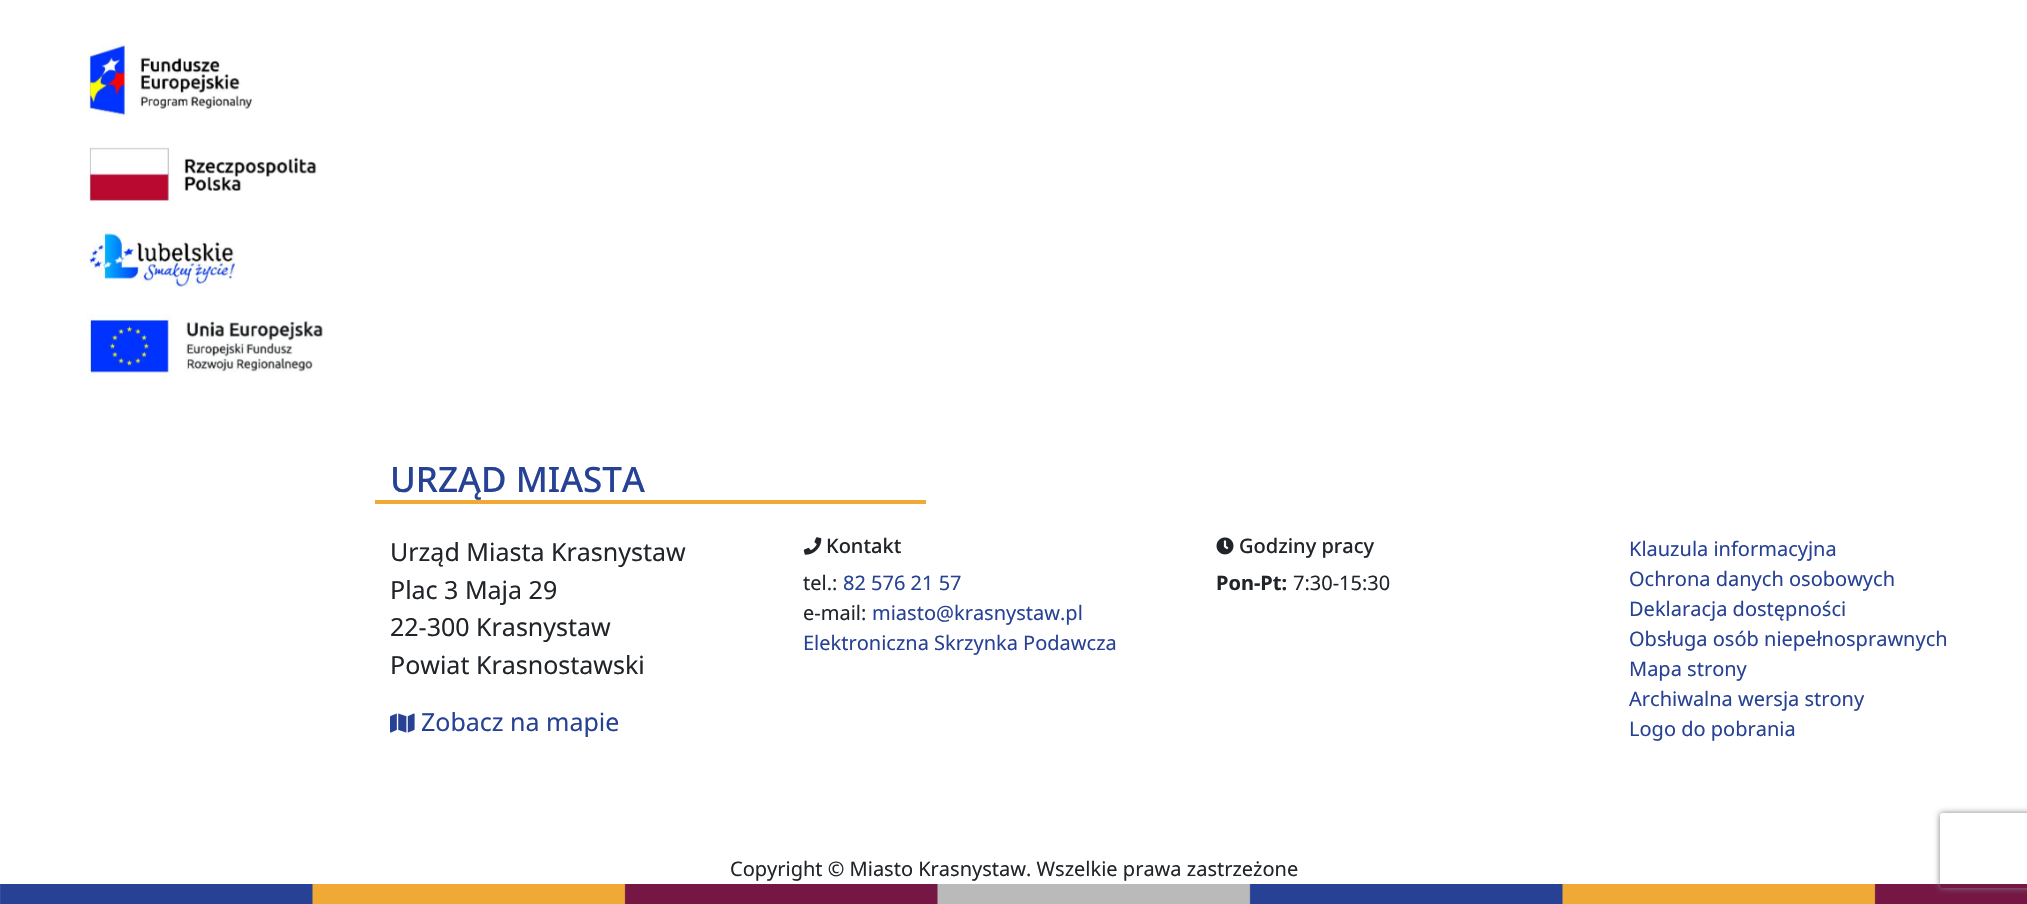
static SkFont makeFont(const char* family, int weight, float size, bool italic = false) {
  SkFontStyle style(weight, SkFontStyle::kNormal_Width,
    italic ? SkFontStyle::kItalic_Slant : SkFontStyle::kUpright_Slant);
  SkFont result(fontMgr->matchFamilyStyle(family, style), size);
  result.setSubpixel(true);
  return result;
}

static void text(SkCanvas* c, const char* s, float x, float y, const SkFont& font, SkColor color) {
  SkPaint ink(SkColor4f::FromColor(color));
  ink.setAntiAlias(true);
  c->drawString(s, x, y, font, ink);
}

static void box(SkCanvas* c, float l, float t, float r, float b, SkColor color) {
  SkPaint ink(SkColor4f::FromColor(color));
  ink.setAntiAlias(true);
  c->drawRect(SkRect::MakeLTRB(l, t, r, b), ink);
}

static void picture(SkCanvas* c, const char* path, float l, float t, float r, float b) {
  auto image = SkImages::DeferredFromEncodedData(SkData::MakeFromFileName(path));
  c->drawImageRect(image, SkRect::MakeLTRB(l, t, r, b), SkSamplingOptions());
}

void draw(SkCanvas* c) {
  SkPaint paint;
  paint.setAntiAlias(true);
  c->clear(0xffffffff);
  picture(c, "img_01.png", 86, 45, 323, 376);
  box(c, 375, 500, 926, 504, 0xfff0a935);
  SkFont face1 = makeFont("Noto Sans", 500, 35);
  text(c, "URZĄD MIASTA", 390, 492, face1, 0xff274295);
  SkFont face2 = makeFont("Noto Sans", 400, 25);
  text(c, "Urząd Miasta Krasnystaw", 390, 561, face2, 0xff212529);
  text(c, "Plac 3 Maja 29", 390, 599, face2, 0xff212529);
  text(c, "22-300 Krasnystaw", 390, 636, face2, 0xff212529);
  text(c, "Powiat Krasnostawski", 390, 674, face2, 0xff212529);
  picture(c, "img_02.png", 390, 713, 415, 733);
  text(c, "Zobacz na mapie", 421, 731, face2, 0xff274295);
  picture(c, "img_03.png", 803, 537, 822, 555);
  SkFont face3 = makeFont("Noto Sans", 500, 20);
  text(c, "Kontakt", 826, 553, face3, 0xff212529);
  SkFont face4 = makeFont("Noto Sans", 400, 20);
  text(c, "tel.:", 803, 590, face4, 0xff212529);
  text(c, "82 576 21 57", 843, 590, face4, 0xff274295);
  text(c, "e-mail:", 803, 620, face4, 0xff212529);
  text(c, "miasto@krasnystaw.pl", 872, 620, face4, 0xff274295);
  text(c, "Elektroniczna Skrzynka Podawcza", 803, 650, face4, 0xff274295);
  picture(c, "img_04.png", 1216, 537, 1234, 555);
  text(c, "Godziny pracy", 1239, 553, face3, 0xff212529);
  SkFont face5 = makeFont("Noto Sans", 700, 20);
  text(c, "Pon-Pt:", 1216, 590, face5, 0xff212529);
  text(c, "7:30-15:30", 1293, 590, face4, 0xff212529);
  text(c, "Klauzula informacyjna", 1629, 556, face4, 0xff274295);
  text(c, "Ochrona danych osobowych", 1629, 586, face4, 0xff274295);
  text(c, "Deklaracja dostępności", 1629, 616, face4, 0xff274295);
  text(c, "Obsługa osób niepełnosprawnych", 1629, 646, face4, 0xff274295);
  text(c, "Mapa strony", 1629, 676, face4, 0xff274295);
  text(c, "Archiwalna wersja strony", 1629, 706, face4, 0xff274295);
  text(c, "Logo do pobrania", 1629, 736, face4, 0xff274295);
  text(c, "Copyright © Miasto Krasnystaw. Wszelkie prawa zastrzeżone", 730, 876, face4, 0xff212529);
  picture(c, "img_05.png", 0, 884, 2027, 904);
  c->save();
  c->clipPath(SkPathBuilder(SkPathFillType::kEvenOdd).moveTo(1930, 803).lineTo(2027, 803).lineTo(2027, 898).lineTo(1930, 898).close().moveTo(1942.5f, 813).lineTo(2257.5f, 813).cubicTo(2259, 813, 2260, 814, 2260, 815.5f).lineTo(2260, 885.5f).cubicTo(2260, 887, 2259, 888, 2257.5f, 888).lineTo(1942.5f, 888).cubicTo(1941, 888, 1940, 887, 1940, 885.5f).lineTo(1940, 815.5f).cubicTo(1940, 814, 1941, 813, 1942.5f, 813).close().detach(), true);
  paint.setColor(0xff808080);
  paint.setMaskFilter(SkMaskFilter::MakeBlur(kNormal_SkBlurStyle, 3));
  c->drawRoundRect(SkRect::MakeLTRB(1940, 813, 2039, 888), 2.5f, 2.5f, paint);
  paint.setMaskFilter(nullptr);
  c->restore();
}
